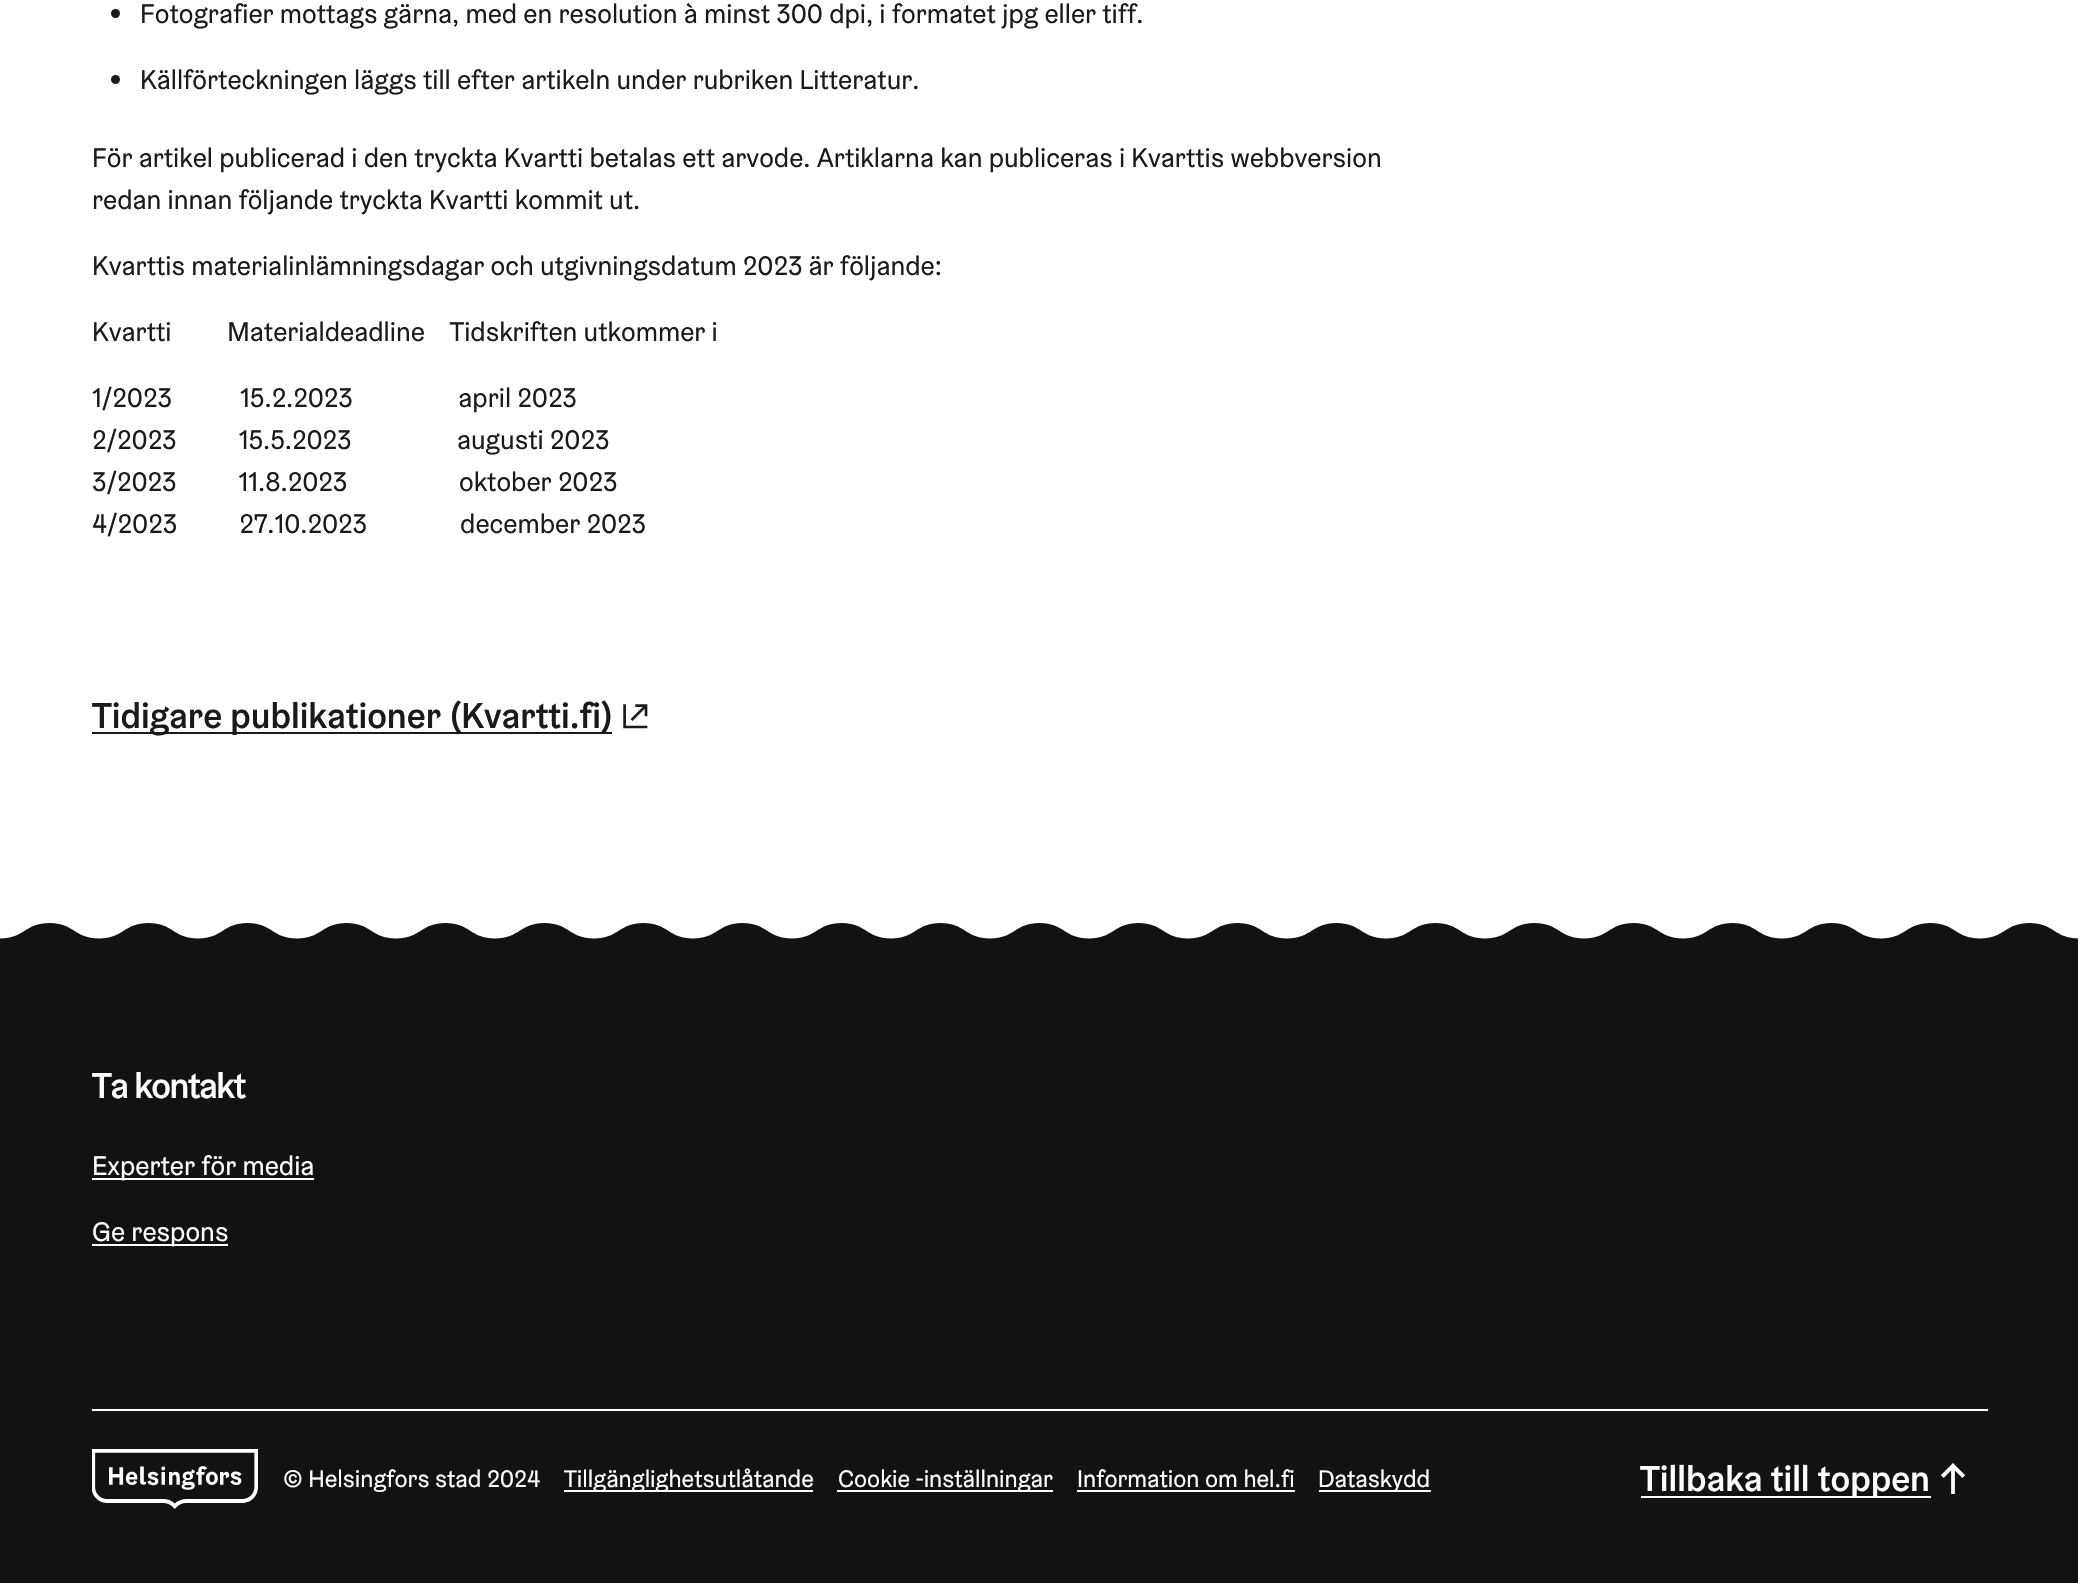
static SkFont makeFont(const char* family, int weight, float size, bool italic = false) {
  SkFontStyle style(weight, SkFontStyle::kNormal_Width,
    italic ? SkFontStyle::kItalic_Slant : SkFontStyle::kUpright_Slant);
  SkFont result(fontMgr->matchFamilyStyle(family, style), size);
  result.setSubpixel(true);
  return result;
}

static void text(SkCanvas* c, const char* s, float x, float y, const SkFont& font, SkColor color) {
  SkPaint ink(SkColor4f::FromColor(color));
  ink.setAntiAlias(true);
  c->drawString(s, x, y, font, ink);
}

static void spacedText(SkCanvas* c, const char* s, float x, float y, const SkFont& font, const SkPaint& ink, float letter, float word) {
  std::vector<SkGlyphID> glyphs(font.countText(s, strlen(s), SkTextEncoding::kUTF8));
  std::vector<float> xs(glyphs.size());
  font.textToGlyphs(s, strlen(s), SkTextEncoding::kUTF8, glyphs);
  font.getXPos(glyphs, xs, x);
  float extra = 0;
  for (size_t i = 0; i < glyphs.size(); i++) {
    xs[i] += extra;
    extra += letter + word * (glyphs[i] == font.unicharToGlyph(' '));
  }
  c->drawTextBlob(SkTextBlob::MakeFromPosHGlyphs(glyphs, xs, y, font), 0, 0, ink);
}

static void box(SkCanvas* c, float l, float t, float r, float b, SkColor color) {
  SkPaint ink(SkColor4f::FromColor(color));
  ink.setAntiAlias(true);
  c->drawRect(SkRect::MakeLTRB(l, t, r, b), ink);
}

static void picture(SkCanvas* c, const char* path, float l, float t, float r, float b) {
  auto image = SkImages::DeferredFromEncodedData(SkData::MakeFromFileName(path));
  c->drawImageRect(image, SkRect::MakeLTRB(l, t, r, b), SkSamplingOptions());
}

void draw(SkCanvas* c) {
  SkPaint paint;
  paint.setAntiAlias(true);
  c->clear(0xffffffff);
  paint.setColor(0xff1a1a1a);
  c->drawCircle(115.5f, 13.5f, 4.5f, paint);
  SkFont face1 = makeFont("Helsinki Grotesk", 400, 27);
  text(c, "Fotografier mottags gärna, med en resolution à minst 300 dpi, i formatet jpg eller tiff.", 140, 23, face1, 0xff1a1a1a);
  c->drawCircle(115.5f, 79.5f, 4.5f, paint);
  text(c, "Källförteckningen läggs till efter artikeln under rubriken Litteratur.", 140, 89, face1, 0xff1a1a1a);
  text(c, "För artikel publicerad i den tryckta Kvartti betalas ett arvode. Artiklarna kan publiceras i Kvarttis webbversion", 92, 167, face1, 0xff1a1a1a);
  text(c, "redan innan följande tryckta Kvartti kommit ut.", 92, 209, face1, 0xff1a1a1a);
  text(c, "Kvarttis materialinlämningsdagar och utgivningsdatum 2023 är följande:", 92, 275, face1, 0xff1a1a1a);
  text(c, "Kvartti         Materialdeadline    Tidskriften utkommer i", 92, 341, face1, 0xff1a1a1a);
  text(c, "1/2023           15.2.2023                 april 2023", 92, 407, face1, 0xff1a1a1a);
  text(c, "2/2023          15.5.2023                 augusti 2023", 92, 449, face1, 0xff1a1a1a);
  text(c, "3/2023          11.8.2023                  oktober 2023", 92, 491, face1, 0xff1a1a1a);
  text(c, "4/2023          27.10.2023               december 2023", 92, 533, face1, 0xff1a1a1a);
  box(c, 92, 732, 612, 734, 0xff1a1a1a);
  SkFont face2 = makeFont("Helsinki Grotesk", 500, 36);
  text(c, "Tidigare publikationer (Kvartti.fi)", 92, 728, face2, 0xff1a1a1a);
  picture(c, "img_01.png", 623, 704, 648, 729);
  box(c, 0, 939, 2078, 1583, 0xff121212);
  picture(c, "img_02.png", 0, 923, 2078, 939);
  paint.setColor(0xffffffff);
  spacedText(c, "Ta kontakt", 92, 1098, face2, paint, -1.5f, 0);
  box(c, 92, 1178, 314, 1180, 0xffffffff);
  text(c, "Experter för media", 92, 1175, face1, 0xffffffff);
  box(c, 92, 1244, 228, 1246, 0xffffffff);
  text(c, "Ge respons", 92, 1241, face1, 0xffffffff);
  box(c, 92, 1409, 1988, 1411, 0xffffffff);
  picture(c, "img_03.png", 92, 1449, 258, 1509);
  SkFont face3 = makeFont("Helsinki Grotesk", 400, 24);
  text(c, "© Helsingfors stad 2024", 283, 1487, face3, 0xffffffff);
  box(c, 564, 1490, 813, 1492, 0xffffffff);
  text(c, "Tillgänglighetsutlåtande", 564, 1487, face3, 0xffffffff);
  box(c, 837, 1490, 1053, 1492, 0xffffffff);
  text(c, "Cookie -inställningar", 838, 1487, face3, 0xffffffff);
  text(c, "Information om hel.fi", 1077, 1487, face3, 0xffffffff);
  box(c, 1077, 1490, 1295, 1492, 0xffffffff);
  box(c, 1319, 1490, 1431, 1492, 0xffffffff);
  text(c, "Dataskydd", 1318, 1487, face3, 0xffffffff);
  box(c, 1641, 1496, 1931, 1498, 0xffffffff);
  text(c, "Tillbaka till toppen", 1640, 1491, face2, 0xffffffff);
  picture(c, "img_04.png", 1941, 1463, 1965, 1494);
}
